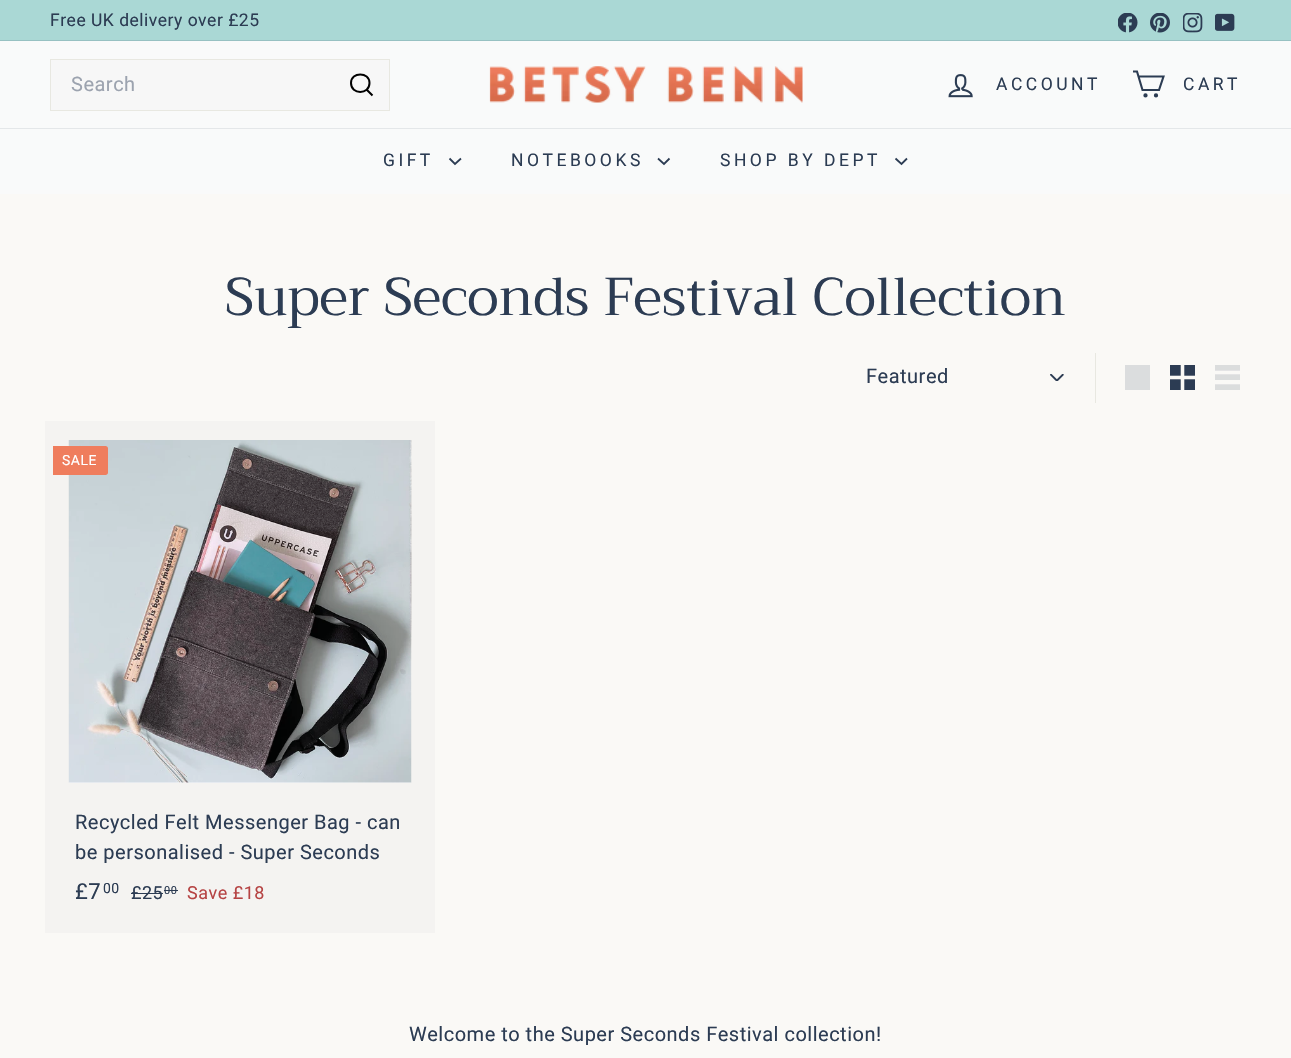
static SkFont makeFont(const char* family, int weight, float size, bool italic = false) {
  SkFontStyle style(weight, SkFontStyle::kNormal_Width,
    italic ? SkFontStyle::kItalic_Slant : SkFontStyle::kUpright_Slant);
  SkFont result(fontMgr->matchFamilyStyle(family, style), size);
  result.setSubpixel(true);
  return result;
}

static void text(SkCanvas* c, const char* s, float x, float y, const SkFont& font, SkColor color) {
  SkPaint ink(SkColor4f::FromColor(color));
  ink.setAntiAlias(true);
  c->drawString(s, x, y, font, ink);
}

static void spacedText(SkCanvas* c, const char* s, float x, float y, const SkFont& font, const SkPaint& ink, float letter, float word) {
  std::vector<SkGlyphID> glyphs(font.countText(s, strlen(s), SkTextEncoding::kUTF8));
  std::vector<float> xs(glyphs.size());
  font.textToGlyphs(s, strlen(s), SkTextEncoding::kUTF8, glyphs);
  font.getXPos(glyphs, xs, x);
  float extra = 0;
  for (size_t i = 0; i < glyphs.size(); i++) {
    xs[i] += extra;
    extra += letter + word * (glyphs[i] == font.unicharToGlyph(' '));
  }
  c->drawTextBlob(SkTextBlob::MakeFromPosHGlyphs(glyphs, xs, y, font), 0, 0, ink);
}

static void box(SkCanvas* c, float l, float t, float r, float b, SkColor color) {
  SkPaint ink(SkColor4f::FromColor(color));
  ink.setAntiAlias(true);
  c->drawRect(SkRect::MakeLTRB(l, t, r, b), ink);
}

static void picture(SkCanvas* c, const char* path, float l, float t, float r, float b) {
  auto image = SkImages::DeferredFromEncodedData(SkData::MakeFromFileName(path));
  c->drawImageRect(image, SkRect::MakeLTRB(l, t, r, b), SkSamplingOptions());
}

void draw(SkCanvas* c) {
  SkPaint paint;
  paint.setAntiAlias(true);
  c->clear(0xfffaf9f6);
  box(c, 45, 421, 435, 933, 0xfff4f3f1);
  box(c, 0, 0, 1291, 40, 0xffaad8d5);
  SkFont face1 = makeFont("Roboto", 400, 17.5f);
  paint.setColor(0xff2c3c53);
  spacedText(c, "Free UK delivery over £25", 50, 26, face1, paint, 0.5f, 0);
  picture(c, "img_01.png", 1118, 13, 1138, 33);
  picture(c, "img_02.png", 1150, 13, 1170, 33);
  picture(c, "img_03.png", 1183, 13, 1203, 33);
  picture(c, "img_04.png", 1215, 13, 1235, 31);
  box(c, 0, 40, 1291, 41, 0xff97c1c2);
  box(c, 0, 41, 1291, 128, 0xfff9fafa);
  paint.setColor(0xfff7f7f7);
  c->drawRect(SkRect::MakeLTRB(50.5f, 59.5f, 389.5f, 110.5f), paint);
  paint.setStyle(SkPaint::kStroke_Style);
  paint.setStrokeWidth(1);
  paint.setColor(0xffe8e8e1);
  c->drawRect(SkRect::MakeLTRB(50.5f, 59.5f, 389.5f, 110.5f), paint);
  SkFont face2 = makeFont("Roboto", 400, 20);
  paint.setStyle(SkPaint::kFill_Style);
  paint.setColor(0xff9ca3af);
  spacedText(c, "Search", 71, 91, face2, paint, 0.5f, 0);
  paint.setStyle(SkPaint::kStroke_Style);
  paint.setStrokeWidth(2);
  paint.setColor(0xff000000);
  c->drawPath(SkPathBuilder().moveTo(369.5f, 83).cubicTo(369.5f, 95, 351, 95, 351, 83).cubicTo(351, 71.5f, 369.5f, 71.5f, 369.5f, 83).moveTo(372.5f, 95.5f).lineTo(366.5f, 89.5f).detach(), paint);
  picture(c, "img_05.png", 489, 66, 803, 103);
  picture(c, "img_06.png", 948, 74, 973, 98);
  paint.setStyle(SkPaint::kFill_Style);
  paint.setColor(0xff2c3c53);
  spacedText(c, "ACCOUNT", 996, 90, face1, paint, 3.5f, 0);
  paint.setStyle(SkPaint::kStroke_Style);
  paint.setStrokeWidth(2.1f);
  c->drawPath(SkPathBuilder().moveTo(1138.5f, 76.5f).lineTo(1163.5f, 76.5f).lineTo(1159, 90).lineTo(1142.5f, 90).lineTo(1137, 71.5f).lineTo(1133, 71.5f).detach(), paint);
  c->drawCircle(1145.5f, 95.4f, 1.1f, paint);
  c->drawCircle(1156, 95.4f, 1.1f, paint);
  paint.setStyle(SkPaint::kFill_Style);
  spacedText(c, "CART", 1183, 90, face1, paint, 3.5f, 0);
  box(c, 0, 129, 1291, 194, 0xfff9fafa);
  box(c, 0, 128, 1291, 129, 0xffe4e7e9);
  spacedText(c, "GIFT", 383, 166, face1, paint, 3.5f, 0);
  paint.setStyle(SkPaint::kStroke_Style);
  paint.setStrokeWidth(1.8f);
  c->drawPath(SkPathBuilder().moveTo(449.5f, 158.5f).lineTo(455, 164).lineTo(461, 158.5f).detach(), paint);
  paint.setStyle(SkPaint::kFill_Style);
  spacedText(c, "NOTEBOOKS", 511, 166, face1, paint, 3.5f, 0);
  paint.setStyle(SkPaint::kStroke_Style);
  c->drawPath(SkPathBuilder().moveTo(658, 158.5f).lineTo(664, 164).lineTo(669.5f, 158.5f).detach(), paint);
  paint.setStyle(SkPaint::kFill_Style);
  spacedText(c, "SHOP BY DEPT", 720, 166, face1, paint, 3.5f, 0);
  paint.setStyle(SkPaint::kStroke_Style);
  c->drawPath(SkPathBuilder().moveTo(895.5f, 158.5f).lineTo(901.5f, 164).lineTo(907, 158.5f).detach(), paint);
  SkFont face3 = makeFont("Trirong", 400, 53.1f);
  text(c, "Super Seconds Festival Collection", 225, 315, face3, 0xff2c3c53);
  box(c, 1095, 353, 1096, 403, 0xffe8e8e1);
  picture(c, "img_07.png", 1050, 374, 1064, 381);
  paint.setStyle(SkPaint::kFill_Style);
  spacedText(c, "Featured", 866, 383, face2, paint, 0.5f, 0);
  box(c, 1125, 365, 1150, 390, 0xffdbddde);
  picture(c, "img_08.png", 1170, 365, 1195, 390);
  picture(c, "img_09.png", 1215, 365, 1240, 390);
  box(c, 69, 782, 411, 783, 0xfff9f9fa);
  picture(c, "img_10.png", 68, 440, 412, 783);
  paint.setColor(0xffef7d5d);
  c->drawPath(SkPathBuilder().moveTo(53, 446).lineTo(105.5f, 446).cubicTo(107, 446, 108, 447, 108, 448.5f).lineTo(108, 472.5f).cubicTo(108, 474, 107, 475, 105.5f, 475).lineTo(53, 475).close().detach(), paint);
  SkFont face4 = makeFont("Roboto", 400, 14);
  paint.setColor(0xffffffff);
  spacedText(c, "SALE", 62, 465, face4, paint, 0.5f, 0);
  paint.setColor(0xff2c3c53);
  spacedText(c, "Recycled Felt Messenger Bag - can", 75, 829, face2, paint, 0.5f, 0);
  spacedText(c, "be personalised - Super Seconds", 75, 859, face2, paint, 0.5f, 0);
  SkFont face5 = makeFont("Roboto", 400, 22);
  spacedText(c, "£7", 75, 899, face5, paint, 0.5f, 0);
  spacedText(c, "00", 103, 893, face4, paint, 0.5f, 0);
  SkFont face6 = makeFont("Roboto", 400, 18);
  spacedText(c, "£25", 131, 899, face6, paint, 0.5f, 0);
  box(c, 131, 893, 163, 894, 0xff2c3c53);
  SkFont face7 = makeFont("Roboto", 400, 11);
  spacedText(c, "00", 164, 894, face7, paint, 0.5f, 0);
  box(c, 164, 890, 178, 891, 0xff2c3c53);
  paint.setColor(0xffb64444);
  spacedText(c, "Save £18", 187, 899, face6, paint, 0.5f, 0);
  paint.setColor(0xff2c3c53);
  spacedText(c, "Welcome to the Super Seconds Festival collection!", 409, 1041, face2, paint, 0.5f, 0);
}
